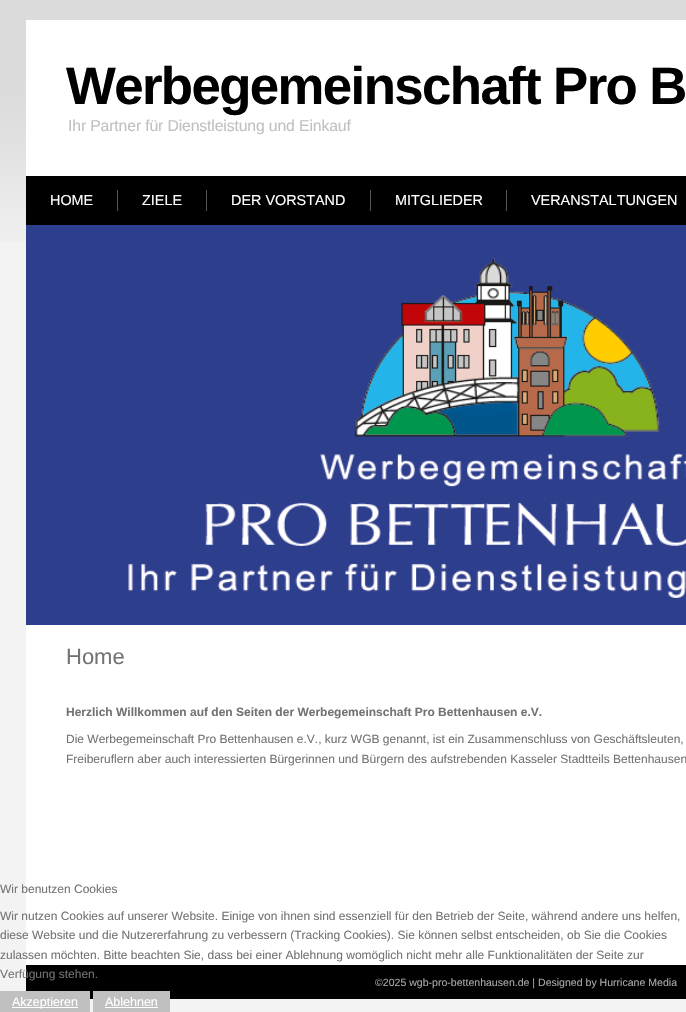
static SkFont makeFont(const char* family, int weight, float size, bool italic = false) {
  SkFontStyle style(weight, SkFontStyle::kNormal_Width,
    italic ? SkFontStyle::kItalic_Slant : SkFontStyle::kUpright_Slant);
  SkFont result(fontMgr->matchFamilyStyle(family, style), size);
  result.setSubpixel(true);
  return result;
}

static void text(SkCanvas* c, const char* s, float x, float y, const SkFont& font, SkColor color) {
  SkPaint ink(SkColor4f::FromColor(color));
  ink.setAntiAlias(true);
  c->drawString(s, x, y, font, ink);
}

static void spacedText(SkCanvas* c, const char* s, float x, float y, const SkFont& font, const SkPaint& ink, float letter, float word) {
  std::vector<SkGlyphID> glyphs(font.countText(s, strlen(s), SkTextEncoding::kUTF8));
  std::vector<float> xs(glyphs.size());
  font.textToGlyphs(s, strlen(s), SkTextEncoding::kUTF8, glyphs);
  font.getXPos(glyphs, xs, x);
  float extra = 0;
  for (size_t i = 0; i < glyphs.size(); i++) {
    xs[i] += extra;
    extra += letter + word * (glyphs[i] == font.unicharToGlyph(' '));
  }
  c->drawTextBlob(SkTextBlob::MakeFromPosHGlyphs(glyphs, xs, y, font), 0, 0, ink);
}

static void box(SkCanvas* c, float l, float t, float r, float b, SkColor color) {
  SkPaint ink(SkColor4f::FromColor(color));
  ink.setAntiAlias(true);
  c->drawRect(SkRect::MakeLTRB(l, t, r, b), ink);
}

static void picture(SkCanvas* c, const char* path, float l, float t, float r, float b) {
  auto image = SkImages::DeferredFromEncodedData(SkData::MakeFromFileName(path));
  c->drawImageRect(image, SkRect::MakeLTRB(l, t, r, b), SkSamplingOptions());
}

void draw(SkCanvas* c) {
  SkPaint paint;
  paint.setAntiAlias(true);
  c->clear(0xfff3f3f3);
  picture(c, "img_01.png", 0, 0, 686, 242);
  box(c, 26, 20, 686, 176, 0xffffffff);
  SkFont face1 = makeFont("Liberation Sans", 700, 52.75f);
  paint.setColor(0xff000000);
  spacedText(c, "Werbegemeinschaft Pro B", 66, 104, face1, paint, -1.6f, 0);
  SkFont face2 = makeFont("Liberation Sans", 400, 15.8f);
  paint.setColor(0xffc1c1c1);
  spacedText(c, "Ihr Partner für Dienstleistung und Einkauf", 68, 131, face2, paint, -0.15f, 0);
  box(c, 26, 176, 686, 225, 0xff000000);
  SkFont face3 = makeFont("Liberation Sans", 400, 14.4f);
  text(c, "HOME", 50, 205, face3, 0xffffffff);
  box(c, 117, 190, 118, 211, 0xff565656);
  text(c, "ZIELE", 142, 205, face3, 0xffffffff);
  box(c, 206, 190, 207, 211, 0xff565656);
  text(c, "DER VORSTAND", 231, 205, face3, 0xffffffff);
  box(c, 370, 190, 371, 211, 0xff565656);
  text(c, "MITGLIEDER", 395, 205, face3, 0xffffffff);
  box(c, 506, 190, 507, 211, 0xff565656);
  text(c, "VERANSTALTUNGEN", 531, 205, face3, 0xffffffff);
  picture(c, "img_02.png", 26, 225, 686, 625);
  box(c, 26, 625, 686, 965, 0xffffffff);
  SkFont face4 = makeFont("Liberation Sans", 400, 22);
  text(c, "Home", 66, 664, face4, 0xff737373);
  SkFont face5 = makeFont("Liberation Sans", 700, 12);
  text(c, "Herzlich Willkommen auf den Seiten der Werbegemeinschaft Pro Bettenhausen e.V.", 66, 716, face5, 0xff737373);
  SkFont face6 = makeFont("Liberation Sans", 400, 12);
  text(c, "Die Werbegemeinschaft Pro Bettenhausen e.V., kurz WGB genannt, ist ein Zusammenschluss von Geschäftsleuten,", 66, 743, face6, 0xff737373);
  text(c, "Freiberuflern aber auch interessierten Bürgerinnen und Bürgern des aufstrebenden Kasseler Stadtteils Bettenhausen", 66, 763, face6, 0xff737373);
  box(c, 26, 965, 686, 999, 0xff000000);
  SkFont face7 = makeFont("Liberation Sans", 400, 10.55f);
  text(c, "©2025 wgb-pro-bettenhausen.de | Designed by Hurricane Media", 375, 986, face7, 0xffa9a9a9);
  text(c, "Wir benutzen Cookies", 0, 893, face6, 0xff737373);
  text(c, "Wir nutzen Cookies auf unserer Website. Einige von ihnen sind essenziell für den Betrieb der Seite, während andere uns helfen,", 0, 920, face6, 0xff737373);
  text(c, "diese Website und die Nutzererfahrung zu verbessern (Tracking Cookies). Sie können selbst entscheiden, ob Sie die Cookies", 0, 939, face6, 0xff737373);
  text(c, "zulassen möchten. Bitte beachten Sie, dass bei einer Ablehnung womöglich nicht mehr alle Funktionalitäten der Seite zur", 0, 959, face6, 0xff737373);
  text(c, "Verfügung stehen.", 0, 978, face6, 0xff737373);
  box(c, 0, 991, 90, 1012, 0xffc0c0c0);
  box(c, 12, 1007, 78, 1008, 0xffffffff);
  SkFont face8 = makeFont("Liberation Sans", 400, 12.5f);
  text(c, "Akzeptieren", 12, 1006, face8, 0xffffffff);
  box(c, 93, 991, 170, 1012, 0xffc0c0c0);
  text(c, "Ablehnen", 105, 1006, face8, 0xffffffff);
  box(c, 105, 1007, 158, 1008, 0xffffffff);
}
